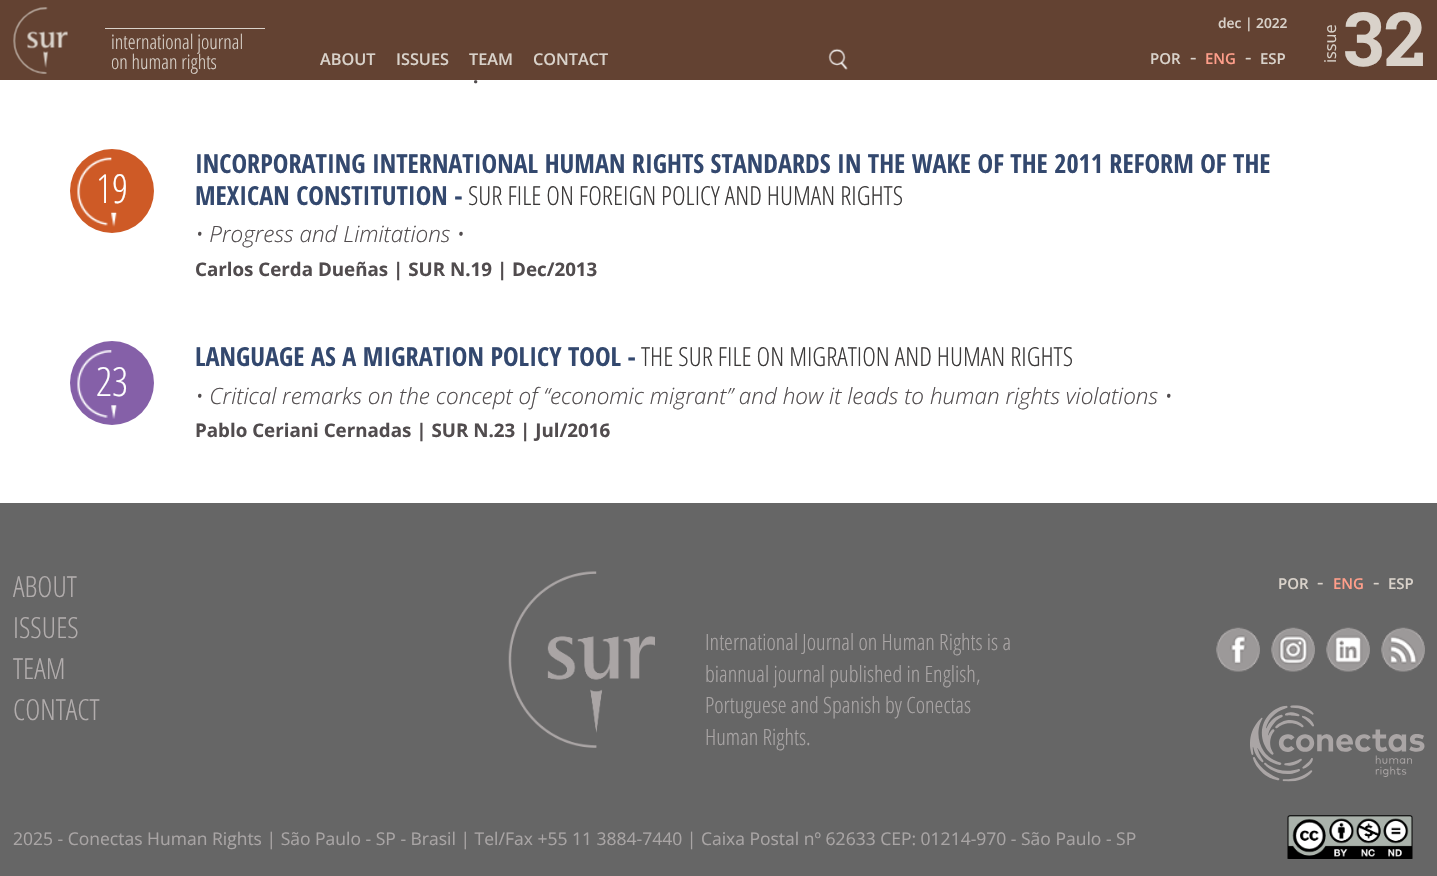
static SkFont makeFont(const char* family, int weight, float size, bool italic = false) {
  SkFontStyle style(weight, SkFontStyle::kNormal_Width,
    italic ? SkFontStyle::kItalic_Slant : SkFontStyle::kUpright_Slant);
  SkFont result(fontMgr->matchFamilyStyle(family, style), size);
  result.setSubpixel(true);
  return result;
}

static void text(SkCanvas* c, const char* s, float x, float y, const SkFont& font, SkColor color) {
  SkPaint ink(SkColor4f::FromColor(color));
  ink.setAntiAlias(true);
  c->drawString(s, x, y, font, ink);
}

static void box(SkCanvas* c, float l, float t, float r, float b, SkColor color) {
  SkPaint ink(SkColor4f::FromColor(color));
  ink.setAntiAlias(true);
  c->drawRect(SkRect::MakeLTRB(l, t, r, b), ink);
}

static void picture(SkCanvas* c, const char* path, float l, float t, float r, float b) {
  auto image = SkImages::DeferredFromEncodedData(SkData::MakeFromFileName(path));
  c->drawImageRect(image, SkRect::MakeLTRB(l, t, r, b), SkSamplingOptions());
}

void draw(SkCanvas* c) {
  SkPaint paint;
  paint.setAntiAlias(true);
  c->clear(0xffffffff);
  box(c, 0, 0, 1437, 80, 0xff634232);
  SkFont face1 = makeFont("Open Sans", 600, 13.75f);
  text(c, "dec | 2022", 1218, 28, face1, 0xffd9d2ca);
  SkFont face2 = makeFont("Open Sans", 400, 16.25f);
  c->save();
  c->rotate(-90, 1336, 63);
  text(c, "issue", 1336, 63, face2, 0xffd9d2ca);
  c->restore();
  SkFont face3 = makeFont("Roboto Slab", 700, 75);
  text(c, "32", 1343, 66, face3, 0xffd9d2ca);
  picture(c, "img_01.png", 13, 7, 68, 74);
  box(c, 105, 28, 265, 29, 0xffd9d2ca);
  SkFont face4 = makeFont("Open Sans", 300, 20);
  text(c, "international journal", 111, 49, face4, 0xffd9d2ca);
  text(c, "on human rights", 111, 69, face4, 0xffd9d2ca);
  SkFont face5 = makeFont("Open Sans", 600, 16.25f);
  text(c, "ABOUT", 320, 65, face5, 0xffd9d2ca);
  text(c, "ISSUES", 396, 65, face5, 0xffd9d2ca);
  text(c, "TEAM", 469, 65, face5, 0xffd9d2ca);
  text(c, "CONTACT", 533, 65, face5, 0xffd9d2ca);
  picture(c, "img_02.png", 828, 48, 848, 70);
  SkFont face6 = makeFont("Open Sans", 600, 15);
  text(c, "POR", 1150, 64, face6, 0xffd9d2ca);
  SkFont face7 = makeFont("Open Sans", 400, 20);
  text(c, "-", 1190, 64, face7, 0xffd9d2ca);
  text(c, "ENG", 1205, 64, face6, 0xffff9e8a);
  text(c, "-", 1245, 64, face7, 0xffd9d2ca);
  text(c, "ESP", 1260, 64, face6, 0xffd9d2ca);
  SkFont face8 = makeFont("Open Sans", 700, 18.75f);
  text(c, ".", 473, 83, face8, 0xff514c4e);
  paint.setColor(0xffce5a26);
  c->drawCircle(112, 191, 42, paint);
  picture(c, "img_03.png", 77, 157, 117, 227);
  SkFont face9 = makeFont("Open Sans", 300, 40);
  text(c, "19", 96, 203, face9, 0xffffffff);
  SkFont face10 = makeFont("Open Sans Condensed", 700, 26.25f);
  text(c, "INCORPORATING INTERNATIONAL HUMAN RIGHTS STANDARDS IN THE WAKE OF THE 2011 REFORM OF THE", 195, 173, face10, 0xff33486e);
  text(c, "MEXICAN CONSTITUTION -", 195, 205, face10, 0xff33486e);
  SkFont face11 = makeFont("Open Sans", 300, 26.25f);
  text(c, "SUR FILE ON FOREIGN POLICY AND HUMAN RIGHTS", 468, 205, face11, 0xff3b3939);
  SkFont face12 = makeFont("Open Sans", 300, 22.5f, true);
  text(c, "• Progress and Limitations •", 195, 242, face12, 0xff514c4e);
  text(c, "Carlos Cerda Dueñas | SUR N.19 | Dec/2013", 195, 276, face8, 0xff514c4e);
  paint.setColor(0xff8560a8);
  c->drawCircle(112, 383, 42, paint);
  picture(c, "img_04.png", 77, 350, 117, 419);
  text(c, "23", 96, 396, face9, 0xffffffff);
  text(c, "LANGUAGE AS A MIGRATION POLICY TOOL -", 195, 366, face10, 0xff33486e);
  text(c, "THE SUR FILE ON MIGRATION AND HUMAN RIGHTS", 641, 366, face11, 0xff3b3939);
  text(c, "• Critical remarks on the concept of “economic migrant” and how it leads to human rights violations •", 195, 404, face12, 0xff514c4e);
  text(c, "Pablo Ceriani Cernadas | SUR N.23 | Jul/2016", 195, 437, face8, 0xff514c4e);
  box(c, 0, 503, 1437, 876, 0xff666666);
  SkFont face13 = makeFont("Open Sans", 300, 29);
  text(c, "ABOUT", 13, 597, face13, 0xffb2adad);
  text(c, "ISSUES", 13, 638, face13, 0xffb2adad);
  text(c, "TEAM", 13, 679, face13, 0xffb2adad);
  text(c, "CONTACT", 13, 720, face13, 0xffb2adad);
  text(c, "POR", 1278, 589, face6, 0xffd9d2ca);
  text(c, "-", 1317, 589, face7, 0xffd9d2ca);
  text(c, "ENG", 1333, 589, face6, 0xffff9e8a);
  text(c, "-", 1373, 589, face7, 0xffd9d2ca);
  text(c, "ESP", 1388, 589, face6, 0xffd9d2ca);
  picture(c, "img_05.png", 508, 571, 655, 748);
  SkFont face14 = makeFont("Open Sans", 300, 22.5f);
  text(c, "International Journal on Human Rights is a", 705, 650, face14, 0xffa9a5a5);
  text(c, "biannual journal published in English,", 705, 682, face14, 0xffa9a5a5);
  text(c, "Portuguese and Spanish by Conectas", 705, 713, face14, 0xffa9a5a5);
  text(c, "Human Rights.", 705, 745, face14, 0xffa9a5a5);
  picture(c, "img_06.png", 1216, 627, 1260, 672);
  picture(c, "img_07.png", 1271, 627, 1315, 672);
  picture(c, "img_08.png", 1326, 627, 1370, 672);
  picture(c, "img_09.png", 1381, 627, 1425, 672);
  picture(c, "img_10.png", 1250, 705, 1425, 782);
  picture(c, "img_11.png", 1287, 815, 1413, 859);
  SkFont face15 = makeFont("Open Sans", 400, 17.5f);
  text(c, "2025 - Conectas Human Rights | São Paulo - SP - Brasil | Tel/Fax +55 11 3884-7440 | Caixa Postal nº 62633 CEP: 01214-970 - São Paulo - SP", 13, 845, face15, 0xffa9a5a5);
}
